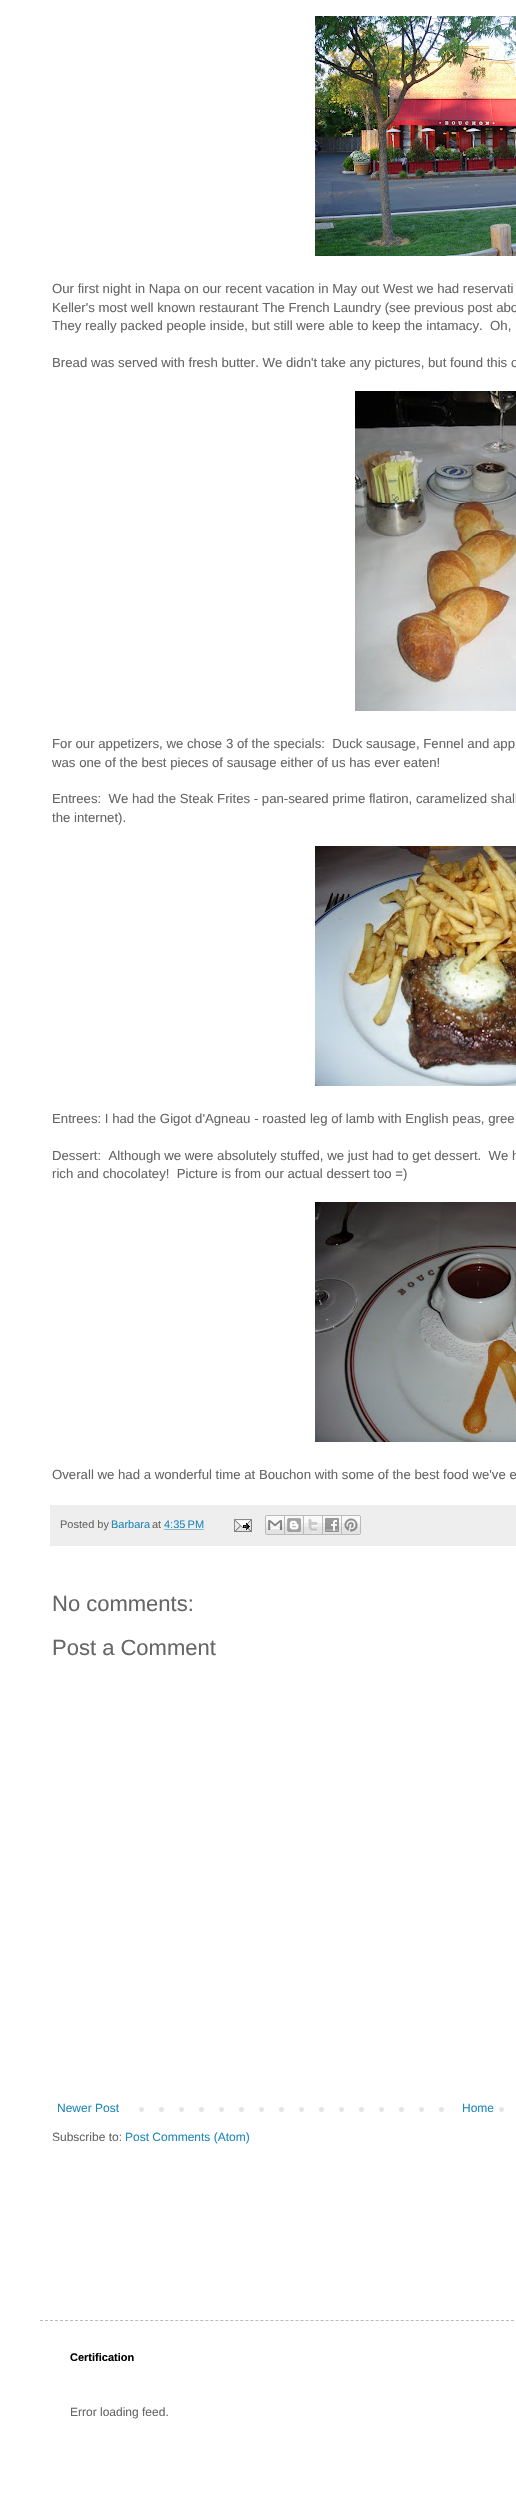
static SkFont makeFont(const char* family, int weight, float size, bool italic = false) {
  SkFontStyle style(weight, SkFontStyle::kNormal_Width,
    italic ? SkFontStyle::kItalic_Slant : SkFontStyle::kUpright_Slant);
  SkFont result(fontMgr->matchFamilyStyle(family, style), size);
  result.setSubpixel(true);
  return result;
}

static void text(SkCanvas* c, const char* s, float x, float y, const SkFont& font, SkColor color) {
  SkPaint ink(SkColor4f::FromColor(color));
  ink.setAntiAlias(true);
  c->drawString(s, x, y, font, ink);
}

static void box(SkCanvas* c, float l, float t, float r, float b, SkColor color) {
  SkPaint ink(SkColor4f::FromColor(color));
  ink.setAntiAlias(true);
  c->drawRect(SkRect::MakeLTRB(l, t, r, b), ink);
}

static void picture(SkCanvas* c, const char* path, float l, float t, float r, float b) {
  auto image = SkImages::DeferredFromEncodedData(SkData::MakeFromFileName(path));
  c->drawImageRect(image, SkRect::MakeLTRB(l, t, r, b), SkSamplingOptions());
}

void draw(SkCanvas* c) {
  SkPaint paint;
  paint.setAntiAlias(true);
  c->clear(0xffffffff);
  picture(c, "img_01.png", 315, 16, 516, 256);
  SkFont face1 = makeFont("Liberation Sans", 400, 13.2f);
  text(c, "Our first night in Napa on our recent vacation in May out West we had reservati", 52, 293, face1, 0xff666666);
  text(c, "Keller's most well known restaurant The French Laundry (see previous post abo", 52, 312, face1, 0xff666666);
  text(c, "They really packed people inside, but still were able to keep the intamacy.  Oh,", 52, 330, face1, 0xff666666);
  text(c, "Bread was served with fresh butter. We didn't take any pictures, but found this o", 52, 367, face1, 0xff666666);
  picture(c, "img_02.png", 355, 391, 516, 711);
  text(c, "For our appetizers, we chose 3 of the specials:  Duck sausage, Fennel and app", 52, 748, face1, 0xff666666);
  text(c, "was one of the best pieces of sausage either of us has ever eaten!", 52, 767, face1, 0xff666666);
  text(c, "Entrees:  We had the Steak Frites - pan-seared prime flatiron, caramelized shall", 52, 803, face1, 0xff666666);
  text(c, "the internet).", 52, 822, face1, 0xff666666);
  picture(c, "img_03.png", 315, 846, 516, 1086);
  text(c, "Entrees: I had the Gigot d'Agneau - roasted leg of lamb with English peas, gree", 52, 1123, face1, 0xff666666);
  text(c, "Dessert:  Although we were absolutely stuffed, we just had to get dessert.  We h", 52, 1160, face1, 0xff666666);
  text(c, "rich and chocolatey!  Picture is from our actual dessert too =)", 52, 1178, face1, 0xff666666);
  picture(c, "img_04.png", 315, 1202, 516, 1442);
  text(c, "Overall we had a wonderful time at Bouchon with some of the best food we've e", 52, 1479, face1, 0xff666666);
  box(c, 50, 1505, 516, 1546, 0xffeeeeee);
  SkFont face2 = makeFont("Liberation Sans", 400, 11);
  text(c, "Posted by", 60, 1528, face2, 0xff666666);
  text(c, "Barbara", 111, 1528, face2, 0xff2288bb);
  text(c, "at", 152, 1528, face2, 0xff666666);
  text(c, "4:35 PM", 164, 1528, face2, 0xff2288bb);
  paint.setStyle(SkPaint::kStroke_Style);
  paint.setStrokeWidth(1);
  paint.setColor(0xff2288bb);
  paint.setPathEffect(SkDashPathEffect::Make({{1, 1}}, 0));
  c->drawPath(SkPathBuilder().moveTo(164.5f, 1529.5f).lineTo(204, 1529.5f).detach(), paint);
  paint.setPathEffect(nullptr);
  picture(c, "img_05.png", 234, 1519, 252, 1532);
  picture(c, "img_06.png", 265, 1515, 285, 1535);
  picture(c, "img_07.png", 285, 1515, 304, 1535);
  picture(c, "img_08.png", 304, 1515, 323, 1535);
  picture(c, "img_09.png", 323, 1515, 342, 1535);
  picture(c, "img_10.png", 342, 1515, 361, 1535);
  SkFont face3 = makeFont("Liberation Sans", 400, 22);
  text(c, "No comments:", 52, 1611, face3, 0xff666666);
  text(c, "Post a Comment", 52, 1655, face3, 0xff666666);
  picture(c, "img_11.png", 139, 2107, 504, 2112);
  SkFont face4 = makeFont("Liberation Sans", 400, 12);
  text(c, "Newer Post", 57, 2112, face4, 0xff2288bb);
  box(c, 459, 2107, 485, 2112, 0xffffffff);
  text(c, "Home", 462, 2112, face4, 0xff2288bb);
  text(c, "Subscribe to:", 52, 2141, face4, 0xff666666);
  text(c, "Post Comments (Atom)", 125, 2141, face4, 0xff2288bb);
  paint.setColor(0xffbbbbbb);
  paint.setPathEffect(SkDashPathEffect::Make({{3, 2.01f}}, 0));
  c->drawPath(SkPathBuilder().moveTo(40, 2320.5f).lineTo(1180, 2320.5f).detach(), paint);
  paint.setPathEffect(nullptr);
  SkFont face5 = makeFont("Liberation Sans", 700, 11);
  text(c, "Certification", 70, 2361, face5, 0xff000000);
  text(c, "Error loading feed.", 70, 2416, face4, 0xff666666);
}
